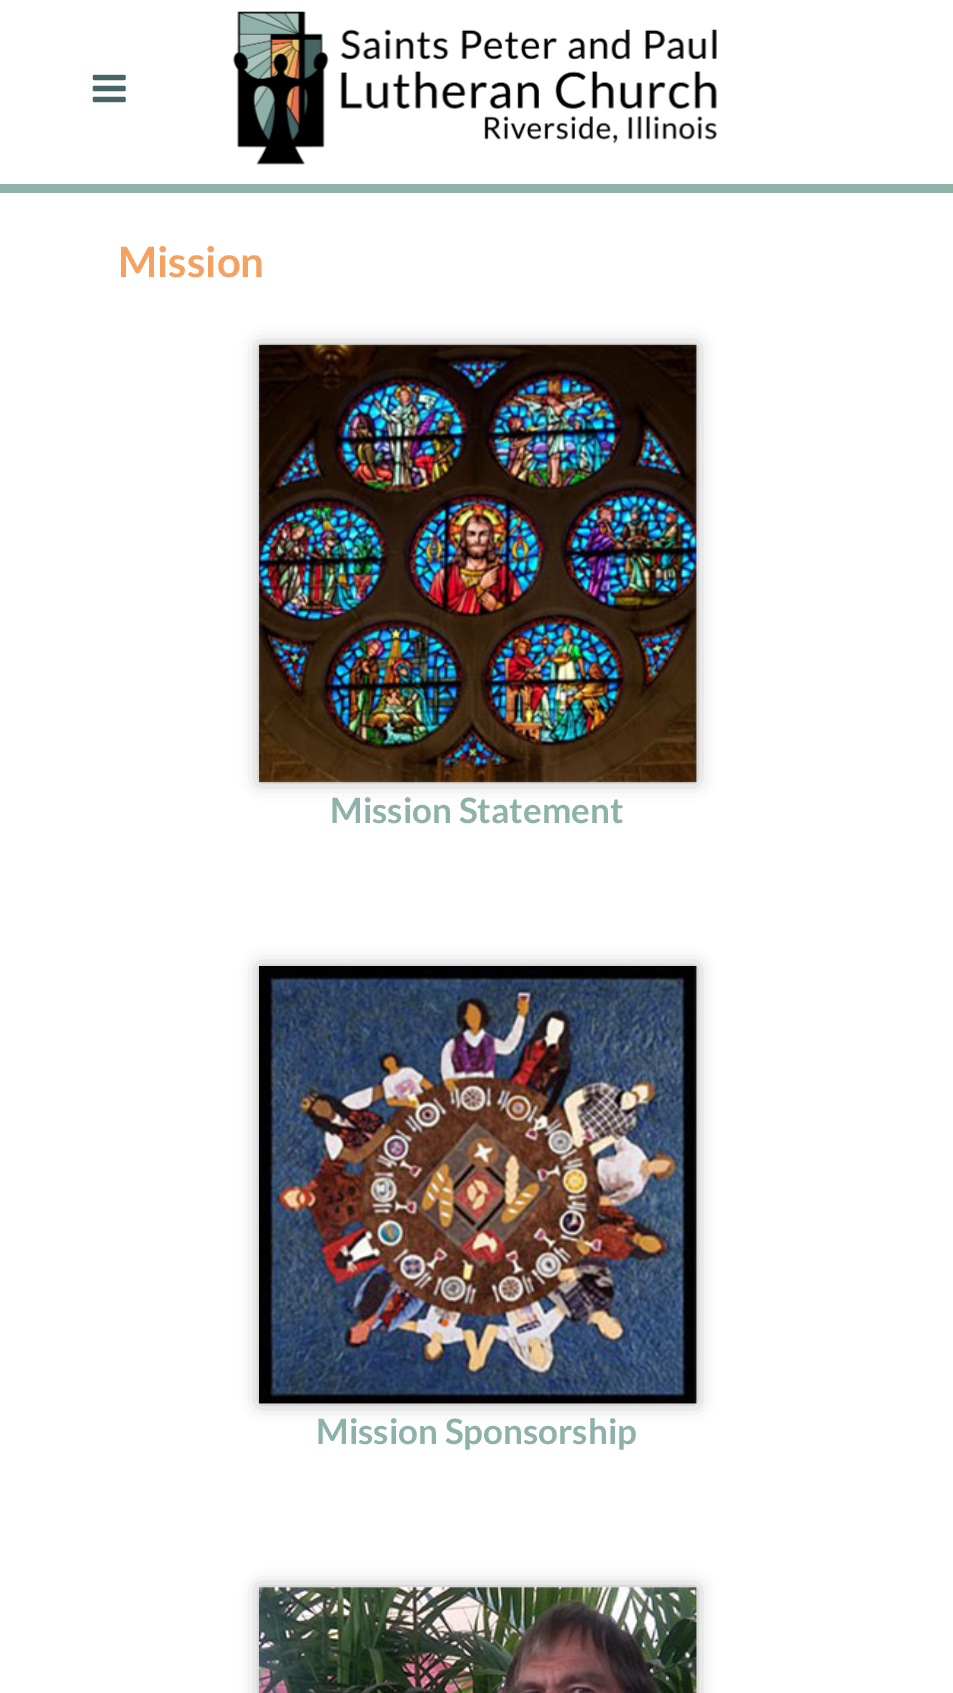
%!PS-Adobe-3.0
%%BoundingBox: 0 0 953 1693
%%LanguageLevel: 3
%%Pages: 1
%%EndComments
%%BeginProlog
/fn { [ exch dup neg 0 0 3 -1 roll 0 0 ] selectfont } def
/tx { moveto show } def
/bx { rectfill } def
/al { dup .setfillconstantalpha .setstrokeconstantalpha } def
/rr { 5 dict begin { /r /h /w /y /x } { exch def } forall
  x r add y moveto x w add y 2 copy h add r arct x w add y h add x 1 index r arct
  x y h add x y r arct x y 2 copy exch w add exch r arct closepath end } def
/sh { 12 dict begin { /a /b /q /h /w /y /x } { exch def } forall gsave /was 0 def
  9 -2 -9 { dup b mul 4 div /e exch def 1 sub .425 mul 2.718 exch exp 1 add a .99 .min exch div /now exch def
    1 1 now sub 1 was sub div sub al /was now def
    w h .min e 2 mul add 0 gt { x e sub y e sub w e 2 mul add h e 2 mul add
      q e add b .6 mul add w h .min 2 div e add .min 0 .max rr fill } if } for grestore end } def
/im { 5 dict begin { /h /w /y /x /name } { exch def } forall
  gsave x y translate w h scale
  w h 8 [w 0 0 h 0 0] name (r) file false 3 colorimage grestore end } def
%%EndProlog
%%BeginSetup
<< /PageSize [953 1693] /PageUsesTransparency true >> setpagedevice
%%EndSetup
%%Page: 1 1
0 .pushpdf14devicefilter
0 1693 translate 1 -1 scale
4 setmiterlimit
1 setgray
0 0 953 1693 bx
0.557 0.698 0.663 setrgbcolor
0 184 953 9 bx
(image0.raw) 92 74 34 29 im
(image1.raw) 232 11 485 154 im
/Lato-Bold 42 fn
0.957 0.635 0.38 setrgbcolor
(Mission) 118 277 tx
0 setgray
259 345 438 437 0 9 0.3 sh
(image2.raw) 259 344 438 439 im
/Lato-Bold 35 fn
0.557 0.698 0.663 setrgbcolor
(Mission Statement) 330 823 tx
0 setgray
259 966 438 438 0 9 0.3 sh
(image3.raw) 259 966 438 438 im
0.557 0.698 0.663 setrgbcolor
(Mission Sponsorship) 316 1444 tx
0 setgray
259 1587 438 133 0 9 0.3 sh
(image4.raw) 259 1587 438 106 im
.poppdf14devicefilter showpage
%%EOF
